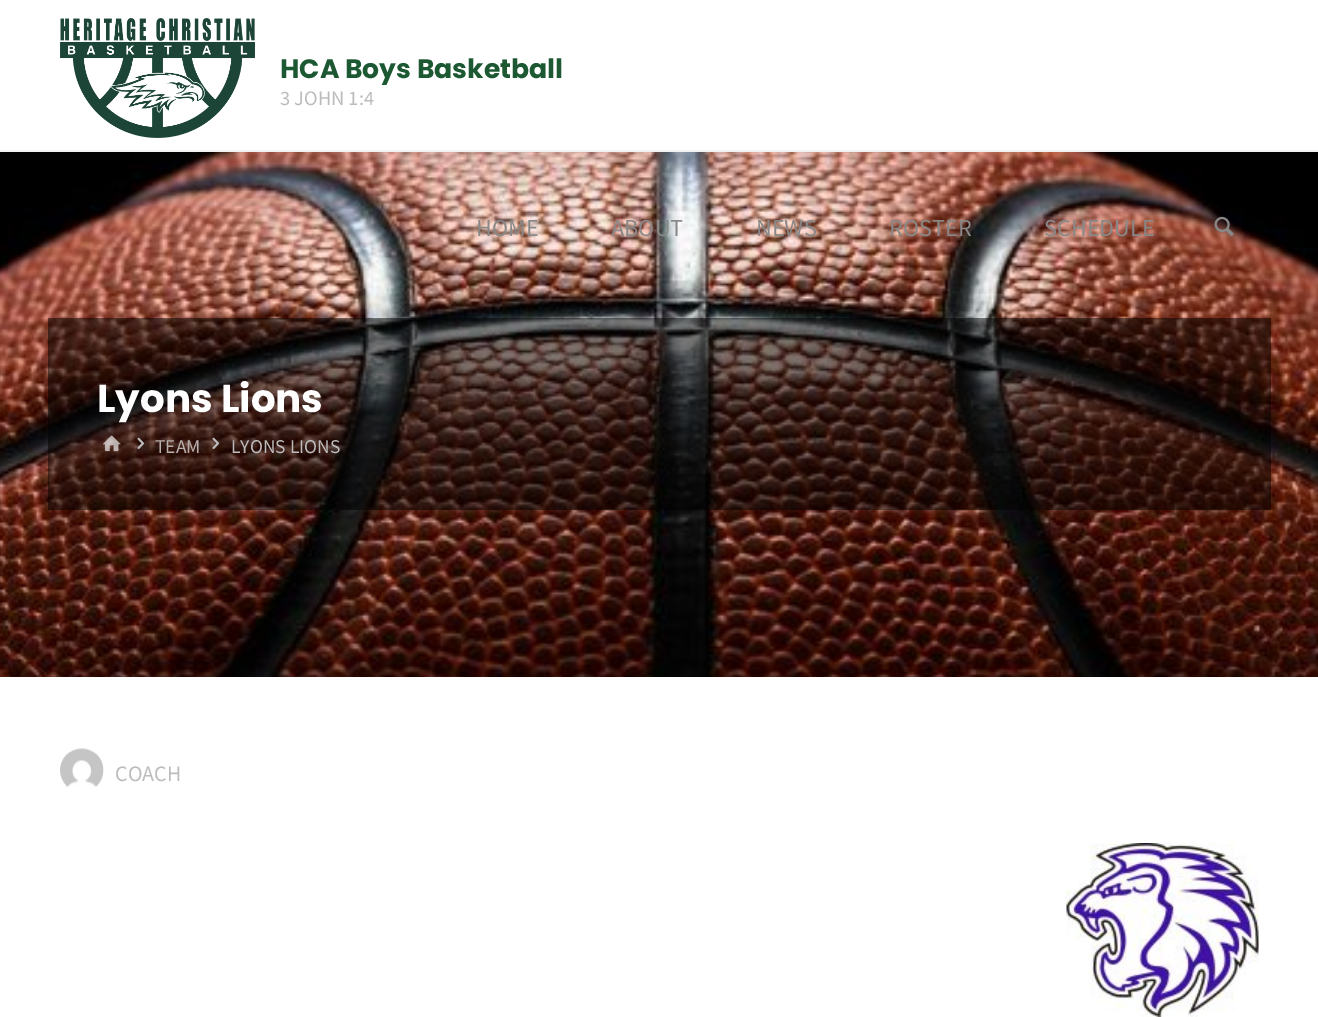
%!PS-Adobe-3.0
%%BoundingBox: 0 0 1318 1017
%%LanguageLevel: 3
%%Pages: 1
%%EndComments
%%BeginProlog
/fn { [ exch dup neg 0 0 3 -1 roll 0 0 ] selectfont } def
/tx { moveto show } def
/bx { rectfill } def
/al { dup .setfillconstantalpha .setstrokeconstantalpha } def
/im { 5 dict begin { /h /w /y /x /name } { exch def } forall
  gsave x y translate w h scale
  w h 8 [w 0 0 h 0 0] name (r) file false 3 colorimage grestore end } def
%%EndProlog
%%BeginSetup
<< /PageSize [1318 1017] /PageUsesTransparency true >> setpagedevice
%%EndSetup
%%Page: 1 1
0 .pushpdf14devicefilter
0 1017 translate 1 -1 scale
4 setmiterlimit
1 setgray
0 0 1318 1017 bx
0.949 setgray
0 150 1318 2 bx
(image0.raw) 60 18 195 120 im
/Poppins-Bold 26.6 fn
0.11 0.345 0.192 setrgbcolor
(HCA Boys Basketball) 280 78 tx
/SourceSansPro-Regular 20.5 fn
0.737 setgray
(3 JOHN 1:4) 280 105 tx
(image2.raw) 0 152 1318 525 im
/SourceSansPro-Regular 24.25 fn
0.533 setgray
(HOME) 476 236 tx
(ABOUT) 611 236 tx
(NEWS) 756 236 tx
(ROSTER) 889 236 tx
(SCHEDULE) 1044 236 tx
(image1.raw) 1214 216 20 20 im
0.5 al
0 setgray
48 318 1223 192 bx
/Poppins-Bold 38.75 fn
1 al
1 setgray
(Lyons Lions) 97 412 tx
(image3.raw) 103 435 18 17 im
(image4.raw) 137 437 7 12 im
/SourceSansPro-Regular 19.5 fn
0.725 0.69 0.682 setrgbcolor
(TEAM) 155 453 tx
(image5.raw) 212 437 7 12 im
0.737 setgray
(LYONS LIONS) 231 453 tx
(image6.raw) 60 748 44 40 im
/SourceSansPro-Regular 22 fn
(COACH) 115 781 tx
(image7.raw) 1066 843 193 174 im
.poppdf14devicefilter showpage
%%EOF
